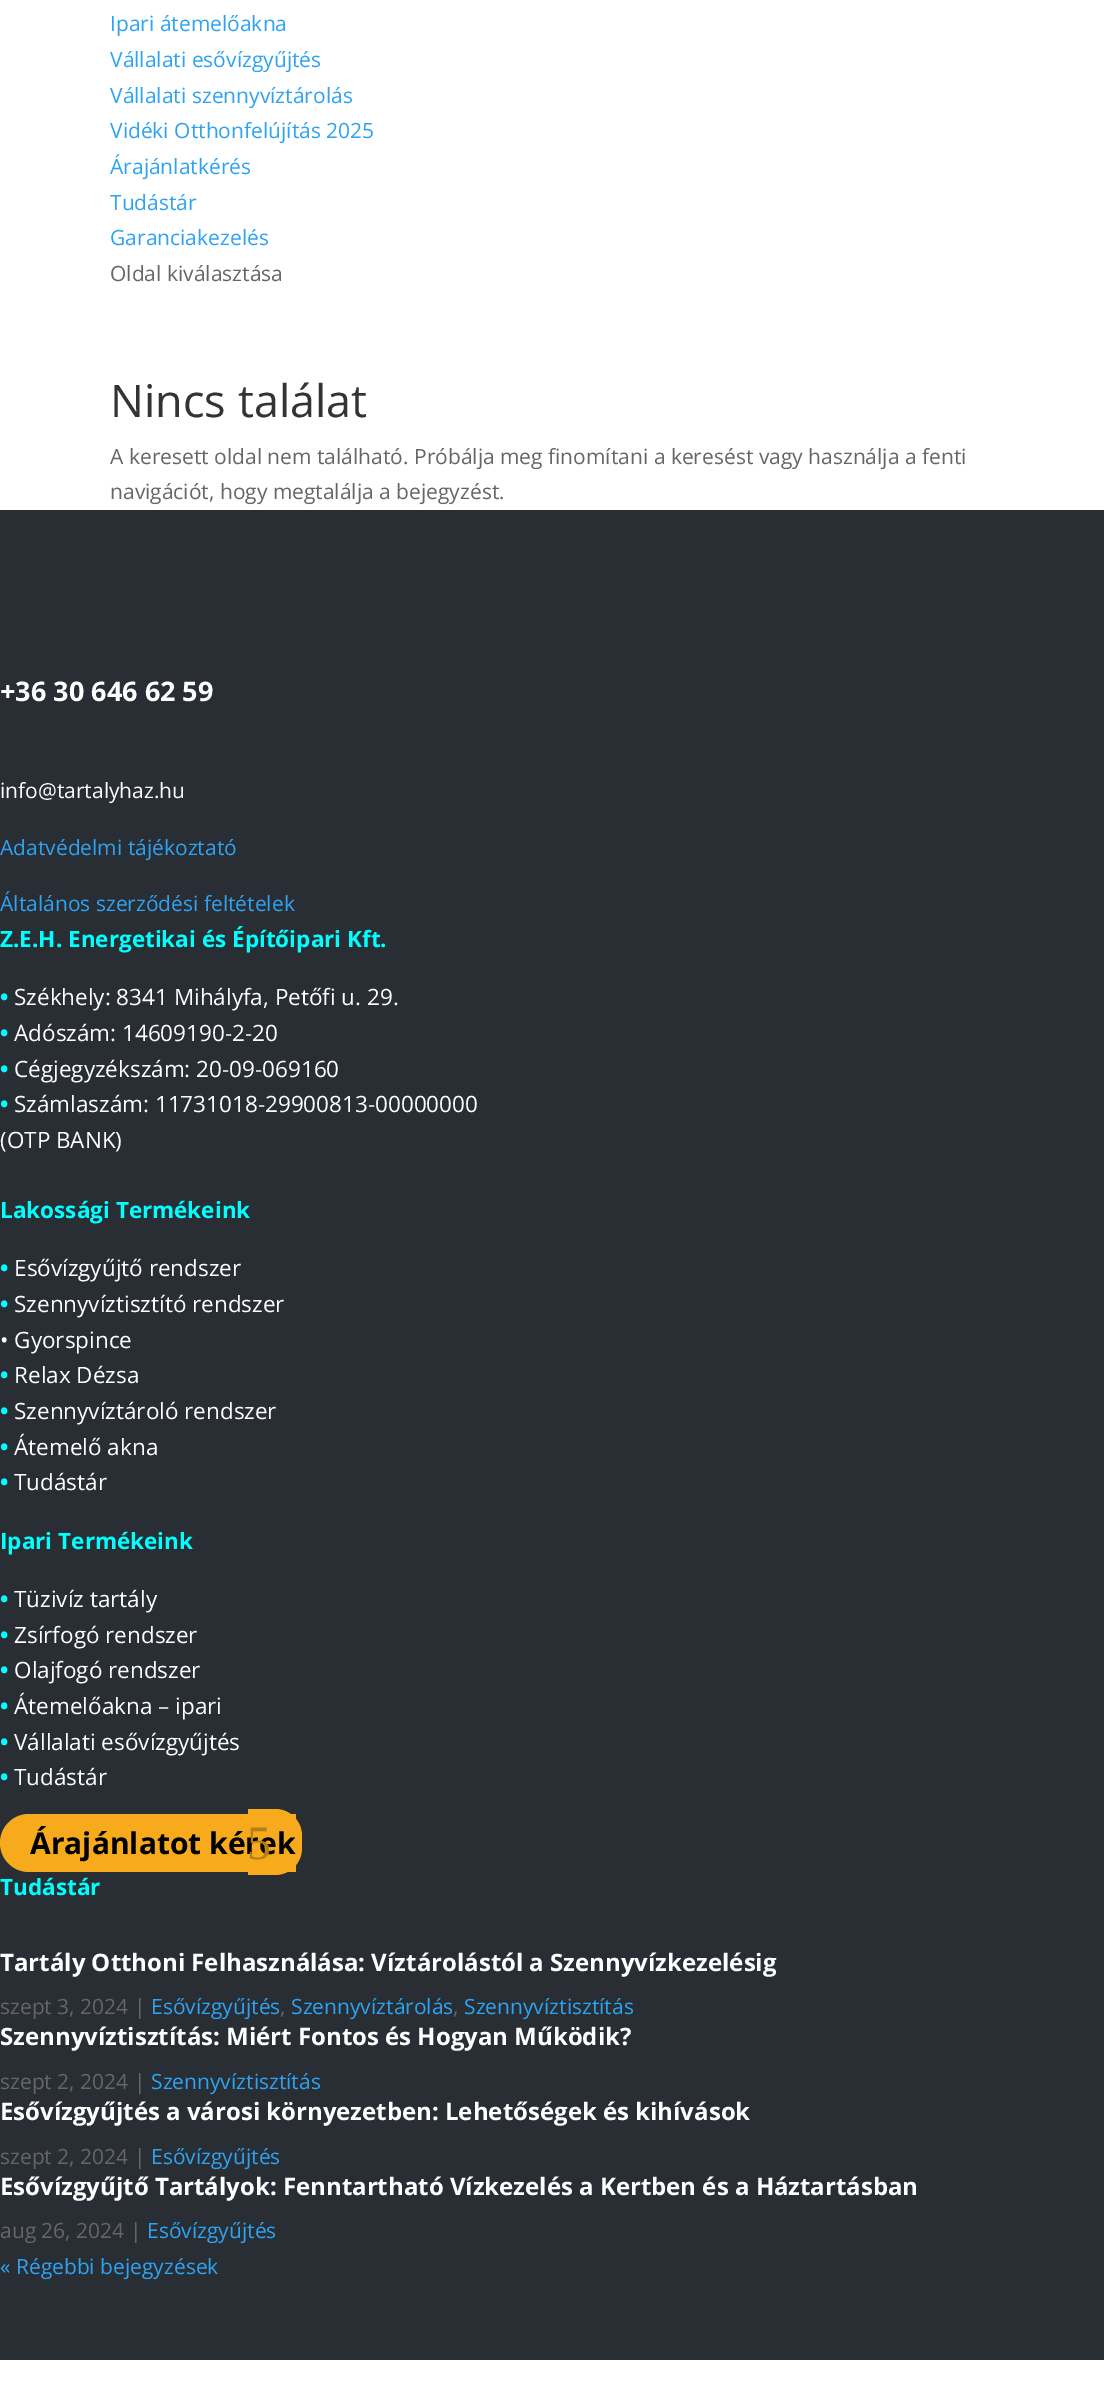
%!PS-Adobe-3.0
%%BoundingBox: 0 0 1104 2395
%%LanguageLevel: 3
%%Pages: 1
%%EndComments
%%BeginProlog
/m { moveto } bind def
/l { lineto } bind def
/c { curveto } bind def
/h { closepath } bind def
/f { fill } bind def
/fn { [ exch dup neg 0 0 3 -1 roll 0 0 ] selectfont } def
/tx { moveto show } def
/bx { rectfill } def
%%EndProlog
%%BeginSetup
<< /PageSize [1104 2395] >> setpagedevice
%%EndSetup
%%Page: 1 1
0 2395 translate 1 -1 scale
4 setmiterlimit
1 setgray
0 0 1104 2395 bx
/OpenSans-Regular 21 fn
0.18 0.639 0.949 setrgbcolor
(Ipari átemelőakna) 110 31 tx
(Vállalati esővízgyűjtés) 110 67 tx
(Vállalati szennyvíztárolás) 110 103 tx
(Vidéki Otthonfelújítás 2025) 110 138 tx
(Árajánlatkérés) 110 174 tx
(Tudástár) 110 210 tx
(Garanciakezelés) 110 245 tx
0.4 setgray
(Oldal kiválasztása) 110 281 tx
/OpenSans-Regular 45 fn
0.2 setgray
(Nincs találat) 110 417 tx
/OpenSans-Regular 21 fn
0.4 setgray
(A keresett oldal nem található. Próbálja meg finomítani a keresést vagy használja a fenti) 110 464 tx
(navigációt, hogy megtalálja a bejegyzést.) 110 499 tx
0.161 0.18 0.204 setrgbcolor
0 510 1104 1850 bx
/OpenSans-Bold 27 fn
1 setgray
(+36 30 646 62 59) 0 701 tx
/OpenSans-Regular 21 fn
(info@tartalyhaz.hu) 0 798 tx
0.18 0.639 0.949 setrgbcolor
(Adatvédelmi tájékoztató) 0 855 tx
(Általános szerződési feltételek) 0 911 tx
/OpenSans-Bold 22.5 fn
0 1 1 setrgbcolor
(Z.E.H. Energetikai és Építőipari Kft.) 0 947 tx
(•) 0 1005 tx
/OpenSans-Regular 22.5 fn
1 setgray
(Székhely: 8341 Mihályfa, Petőfi u. 29.) 14 1005 tx
/OpenSans-Bold 22.5 fn
0 1 1 setrgbcolor
(•) 0 1041 tx
/OpenSans-Regular 22.5 fn
1 setgray
(Adószám: 14609190-2-20) 14 1041 tx
/OpenSans-Bold 22.5 fn
0 1 1 setrgbcolor
(•) 0 1077 tx
/OpenSans-Regular 22.5 fn
1 setgray
(Cégjegyzékszám: 20-09-069160) 14 1077 tx
/OpenSans-Bold 22.5 fn
0 1 1 setrgbcolor
(•) 0 1112 tx
/OpenSans-Regular 22.5 fn
1 setgray
(Számlaszám: 11731018-29900813-00000000) 14 1112 tx
(\(OTP BANK\)) 0 1148 tx
/OpenSans-Bold 22.5 fn
0 1 1 setrgbcolor
(Lakossági Termékeink) 0 1218 tx
(•) 0 1276 tx
/OpenSans-Regular 22.5 fn
1 setgray
(Esővízgyűjtő rendszer) 14 1276 tx
/OpenSans-Bold 22.5 fn
0 1 1 setrgbcolor
(•) 0 1312 tx
/OpenSans-Regular 22.5 fn
1 setgray
(Szennyvíztisztító rendszer) 14 1312 tx
(• Gyorspince) 0 1348 tx
/OpenSans-Bold 22.5 fn
0 1 1 setrgbcolor
(•) 0 1383 tx
/OpenSans-Regular 22.5 fn
1 setgray
(Relax Dézsa) 14 1383 tx
/OpenSans-Bold 22.5 fn
0 1 1 setrgbcolor
(•) 0 1419 tx
/OpenSans-Regular 22.5 fn
1 setgray
(Szennyvíztároló rendszer) 14 1419 tx
/OpenSans-Bold 22.5 fn
0 1 1 setrgbcolor
(•) 0 1455 tx
/OpenSans-Regular 22.5 fn
1 setgray
(Átemelő akna) 14 1455 tx
/OpenSans-Bold 22.5 fn
0 1 1 setrgbcolor
(•) 0 1490 tx
/OpenSans-Regular 22.5 fn
1 setgray
(Tudástár) 14 1490 tx
/OpenSans-Bold 22.5 fn
0 1 1 setrgbcolor
(Ipari Termékeink) 0 1549 tx
(•) 0 1607 tx
/OpenSans-Regular 22.5 fn
1 setgray
(Tüzivíz tartály) 14 1607 tx
/OpenSans-Bold 22.5 fn
0 1 1 setrgbcolor
(•) 0 1643 tx
/OpenSans-Regular 22.5 fn
1 setgray
(Zsírfogó rendszer) 14 1643 tx
/OpenSans-Bold 22.5 fn
0 1 1 setrgbcolor
(•) 0 1678 tx
/OpenSans-Regular 22.5 fn
1 setgray
(Olajfogó rendszer) 14 1678 tx
/OpenSans-Bold 22.5 fn
0 1 1 setrgbcolor
(•) 0 1714 tx
/OpenSans-Regular 22.5 fn
1 setgray
(Átemelőakna – ipari) 14 1714 tx
/OpenSans-Bold 22.5 fn
0 1 1 setrgbcolor
(•) 0 1750 tx
/OpenSans-Regular 22.5 fn
1 setgray
(Vállalati esővízgyűjtés) 14 1750 tx
/OpenSans-Bold 22.5 fn
0 1 1 setrgbcolor
(•) 0 1785 tx
/OpenSans-Regular 22.5 fn
1 setgray
(Tudástár) 14 1785 tx
0.965 0.667 0.11 setrgbcolor
29 1814 m 296 1814 l 296 1872 l 29 1872 l 13 1872 0 1859 0 1843 c 0 1827 13 1814 29 1814 c h f
248 1809 m 275 1809 l 290 1809 302 1821 302 1836 c 302 1848 l 302 1863 290 1875 275 1875 c 248 1875 l h f
/OpenSans-Bold 30 fn
0 setgray
(Árajánlatot kérek) 30 1854 tx
/LiberationSerif-Regular 48 fn
0.714 0.494 0.082 setrgbcolor
(5) 247 1859 tx
/OpenSans-Bold 22.5 fn
0 1 1 setrgbcolor
(Tudástár) 0 1895 tx
/OpenSans-Bold 24 fn
1 setgray
(Tartály Otthoni Felhasználása: Víztárolástól a Szennyvízkezelésig) 0 1971 tx
/OpenSans-Regular 21 fn
0.4 setgray
(szept 3, 2024 |) 0 2014 tx
0.18 0.639 0.949 setrgbcolor
(Esővízgyűjtés) 151 2014 tx
0.4 setgray
(,) 280 2014 tx
0.18 0.639 0.949 setrgbcolor
(Szennyvíztárolás) 291 2014 tx
0.4 setgray
(,) 453 2014 tx
0.18 0.639 0.949 setrgbcolor
(Szennyvíztisztítás) 464 2014 tx
/OpenSans-Bold 24 fn
1 setgray
(Szennyvíztisztítás: Miért Fontos és Hogyan Működik?) 0 2045 tx
/OpenSans-Regular 21 fn
0.4 setgray
(szept 2, 2024 |) 0 2089 tx
0.18 0.639 0.949 setrgbcolor
(Szennyvíztisztítás) 151 2089 tx
/OpenSans-Bold 24 fn
1 setgray
(Esővízgyűjtés a városi környezetben: Lehetőségek és kihívások) 0 2120 tx
/OpenSans-Regular 21 fn
0.4 setgray
(szept 2, 2024 |) 0 2164 tx
0.18 0.639 0.949 setrgbcolor
(Esővízgyűjtés) 151 2164 tx
/OpenSans-Bold 24 fn
1 setgray
(Esővízgyűjtő Tartályok: Fenntartható Vízkezelés a Kertben és a Háztartásban) 0 2195 tx
/OpenSans-Regular 21 fn
0.4 setgray
(aug 26, 2024 |) 0 2238 tx
0.18 0.639 0.949 setrgbcolor
(Esővízgyűjtés) 147 2238 tx
(« Régebbi bejegyzések) 0 2274 tx
showpage
%%EOF
